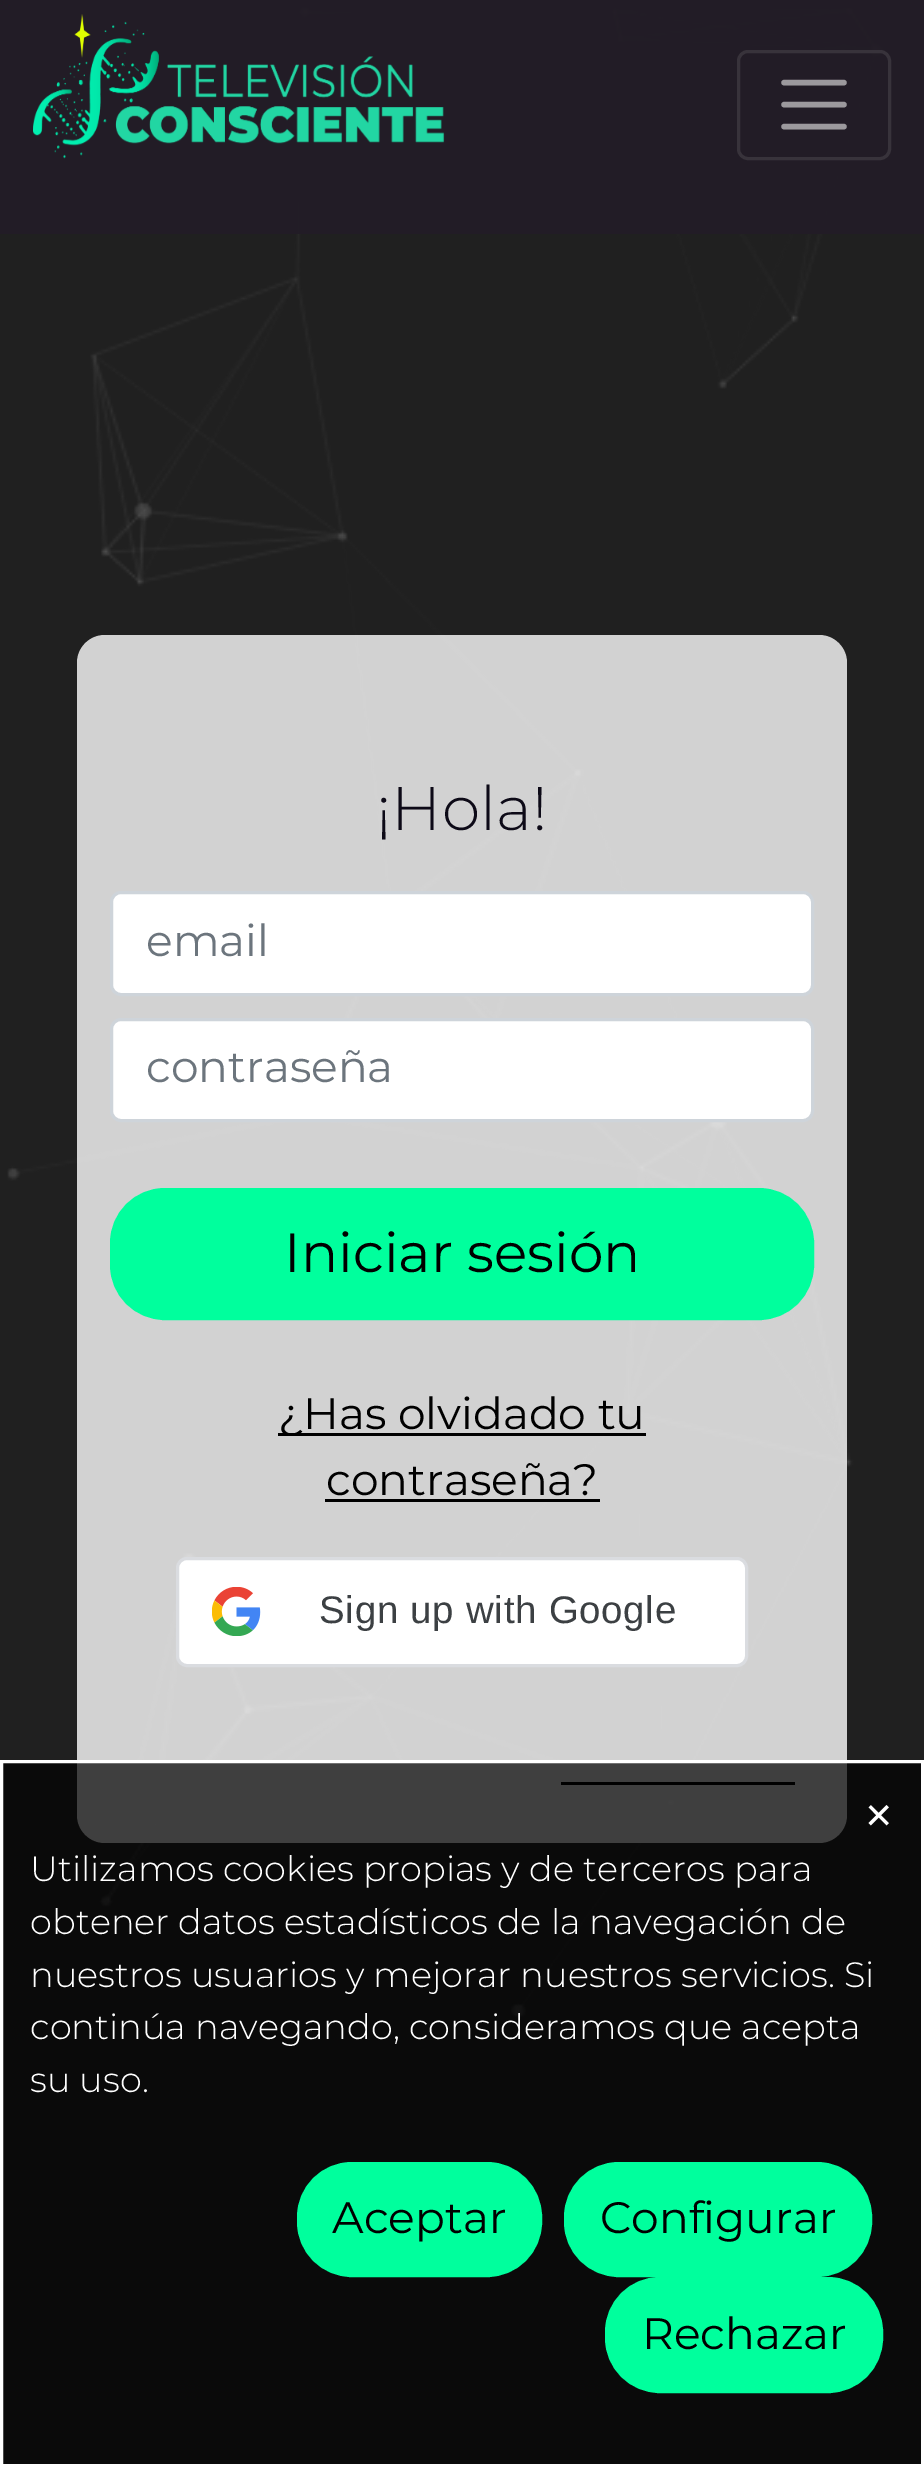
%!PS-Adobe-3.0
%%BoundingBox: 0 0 924 2466
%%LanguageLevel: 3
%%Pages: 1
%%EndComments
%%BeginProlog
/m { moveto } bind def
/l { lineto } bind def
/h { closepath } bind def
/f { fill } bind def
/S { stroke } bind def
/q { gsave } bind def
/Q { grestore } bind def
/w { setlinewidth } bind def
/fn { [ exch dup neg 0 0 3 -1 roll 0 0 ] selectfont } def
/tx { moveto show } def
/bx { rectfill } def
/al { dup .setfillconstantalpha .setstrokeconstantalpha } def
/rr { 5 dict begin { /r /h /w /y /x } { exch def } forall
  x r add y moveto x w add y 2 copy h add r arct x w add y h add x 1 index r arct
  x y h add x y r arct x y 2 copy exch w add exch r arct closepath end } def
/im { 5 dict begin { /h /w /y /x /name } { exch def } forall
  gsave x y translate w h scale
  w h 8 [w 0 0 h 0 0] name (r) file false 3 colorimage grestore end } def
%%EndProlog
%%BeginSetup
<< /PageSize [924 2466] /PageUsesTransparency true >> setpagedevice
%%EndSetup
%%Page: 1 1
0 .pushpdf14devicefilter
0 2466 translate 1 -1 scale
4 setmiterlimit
0.125 setgray
0 0 924 2466 bx
(image1.raw) 7 7 877 2100 im
0.95 al
0.133 0.11 0.149 setrgbcolor
0 0 924 234 bx
1 al
(image0.raw) 33 14 412 145 im
0.22 0.2 0.231 setrgbcolor
3 w
738.5 51.5 151 107 9.5 rr S
0.612 0.6 0.616 setrgbcolor
5.5 w
1 setlinecap
784 82.5 m 844 82.5 l 784 104.5 m 844 104.5 l 784 126.5 m 844 126.5 l S
0.8 al
1 setgray
77 635 770 1208 28 rr f
/Montserrat-Light 61.5 fn
1 al
0.051 0.039 0.09 setrgbcolor
(¡Hola!) 376 830 tx
1 setgray
111.5 892.5 701 102 9.5 rr q f Q
0.808 0.831 0.855 setrgbcolor
3 w
0 setlinecap
S
/Montserrat-Regular 44 fn
0.424 0.459 0.49 setrgbcolor
(email) 146 956 tx
1 setgray
111.5 1019.5 701 101 9.5 rr q f Q
0.808 0.831 0.855 setrgbcolor
S
0.424 0.459 0.49 setrgbcolor
(contraseña) 146 1082 tx
0 1 0.616 setrgbcolor
111.5 1189.5 701 129 53.5 rr q f Q
S
/Montserrat-Regular 55 fn
0 setgray
(Iniciar sesión) 284 1272 tx
278 1433 368 3 bx
/Montserrat-Regular 44 fn
(¿Has olvidado tu) 278 1429 tx
(contraseña?) 326 1495 tx
325 1499 275 3 bx
1 setgray
177.5 1558.5 569 107 9.5 rr q f Q
0.855 0.863 0.878 setrgbcolor
S
(image2.raw) 212 1587 49 49 im
/LiberationSans-Regular 38.5 fn
0.235 0.251 0.263 setrgbcolor
319 1623 m 0.7 0 (Sign up with Google) ashow
0 setgray
561 1782 234 3 bx
0.7 al
1.5 1761.5 m 922.5 1761.5 l 922.5 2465.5 l 1.5 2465.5 l h f
1 al
1 setgray
1.5 1761.5 m 922.5 1761.5 l 922.5 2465.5 l 1.5 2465.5 l h S
/DejaVuSans-Regular 35.2 fn
(✕) 864 1828 tx
/Montserrat-Light 35.2 fn
(Utilizamos cookies propias y de terceros para) 30 1881 tx
(obtener datos estadísticos de la navegación de) 30 1934 tx
(nuestros usuarios y mejorar nuestros servicios. Si) 30 1987 tx
(continúa navegando, consideramos que acepta) 30 2039 tx
(su uso.) 30 2092 tx
0 1 0.616 setrgbcolor
298.5 2163.5 242 112 53.5 rr q f Q
S
/Montserrat-Regular 44 fn
0 setgray
(Aceptar) 332 2233 tx
0 1 0.616 setrgbcolor
565.5 2163.5 305 112 53.5 rr q f Q
S
0 setgray
(Configurar) 600 2233 tx
0 1 0.616 setrgbcolor
606.5 2278.5 275 113 53.5 rr q f Q
S
0 setgray
(Rechazar) 642 2349 tx
.poppdf14devicefilter showpage
%%EOF
